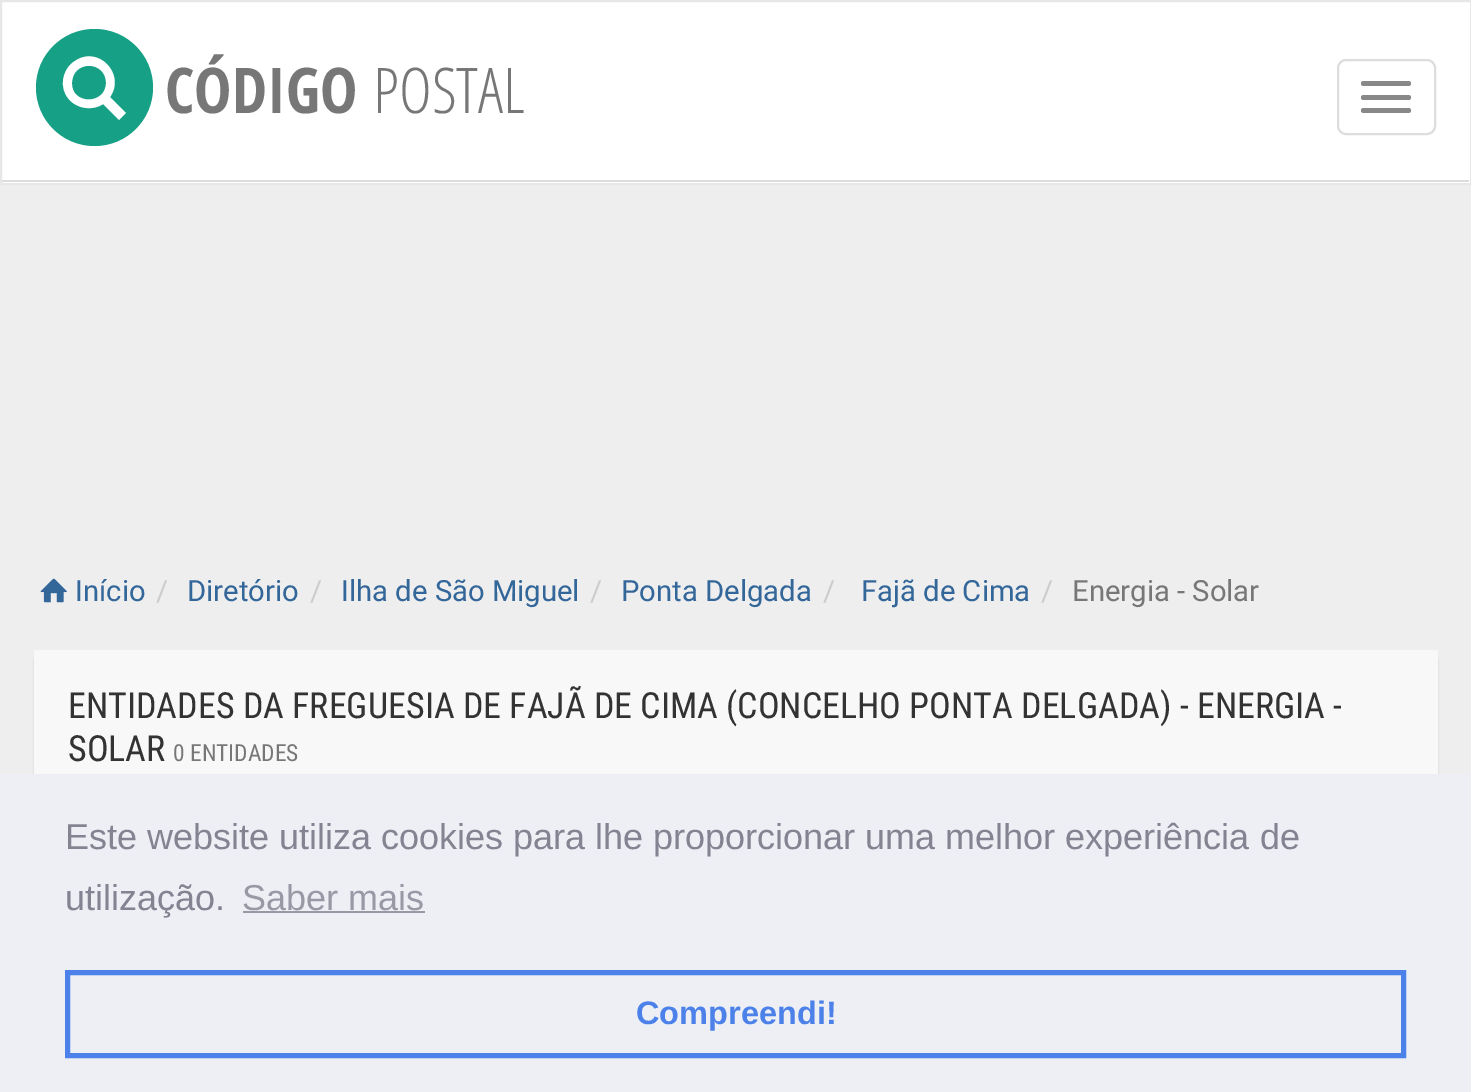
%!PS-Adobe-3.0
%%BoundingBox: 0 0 1471 1092
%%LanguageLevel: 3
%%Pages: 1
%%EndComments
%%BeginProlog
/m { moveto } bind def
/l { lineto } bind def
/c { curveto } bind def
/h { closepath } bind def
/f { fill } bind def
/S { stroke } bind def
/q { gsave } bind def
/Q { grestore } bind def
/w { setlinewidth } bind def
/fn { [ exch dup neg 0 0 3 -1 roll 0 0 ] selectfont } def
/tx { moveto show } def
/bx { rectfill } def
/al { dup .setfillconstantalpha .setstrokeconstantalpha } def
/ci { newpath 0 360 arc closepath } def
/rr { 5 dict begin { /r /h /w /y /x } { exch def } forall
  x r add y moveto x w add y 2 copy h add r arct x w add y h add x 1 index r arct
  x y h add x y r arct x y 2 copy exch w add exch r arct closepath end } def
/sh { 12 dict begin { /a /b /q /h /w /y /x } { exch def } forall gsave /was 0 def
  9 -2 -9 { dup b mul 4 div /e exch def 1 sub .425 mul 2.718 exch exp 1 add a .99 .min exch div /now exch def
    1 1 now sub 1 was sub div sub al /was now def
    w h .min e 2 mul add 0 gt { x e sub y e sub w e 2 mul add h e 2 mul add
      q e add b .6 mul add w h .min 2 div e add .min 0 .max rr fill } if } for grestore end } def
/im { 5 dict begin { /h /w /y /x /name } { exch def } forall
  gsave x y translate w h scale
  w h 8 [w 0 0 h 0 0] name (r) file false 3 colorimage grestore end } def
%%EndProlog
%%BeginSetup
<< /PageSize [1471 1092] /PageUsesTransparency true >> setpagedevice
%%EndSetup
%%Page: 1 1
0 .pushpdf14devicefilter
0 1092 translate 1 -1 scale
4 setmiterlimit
0.933 setgray
0 0 1471 1092 bx
1 setgray
1 1 m 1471 1 l 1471 184 l 1 184 l h q f Q
0.906 setgray
2 w
S
0.867 setgray
2 180 1467 2 bx
0.086 0.627 0.522 setrgbcolor
94.5 87.5 58.5 ci f
1 setgray
110 97 m 126 113 l 119 120 l 103 104 l 91 112 73 108 66 95 c 62 88 62 80 65 73 c 67 68 70 64 75 61 c 98 45 126 74 110 97 c h 106 83 m 106 60 72 60 72 83 c 71 105 106 105 106 83 c h f
/OpenSansCondensed-Bold 63 fn
0.467 setgray
(CÓDIGO) 165 113 tx
/OpenSansCondensed-Light 63 fn
(POSTAL) 373 113 tx
0.867 setgray
1338 60 97 74 8 rr S
0.533 setgray
1361 81 50 5 2.5 rr f
1361 95 50 5 2.5 rr f
1361 108 50 5 2.5 rr f
(image0.raw) 40 578 27 25 im
/Roboto-Regular 29.25 fn
0.2 0.4 0.6 setrgbcolor
(Início) 75 601 tx
0.8 setgray
(/) 156 601 tx
0.2 0.4 0.6 setrgbcolor
(Diretório) 187 601 tx
0.8 setgray
(/) 310 601 tx
0.2 0.4 0.6 setrgbcolor
(Ilha de São Miguel) 341 601 tx
0.8 setgray
(/) 590 601 tx
0.2 0.4 0.6 setrgbcolor
(Ponta Delgada) 621 601 tx
0.8 setgray
(/) 823 601 tx
0.2 0.4 0.6 setrgbcolor
(Fajã de Cima) 861 601 tx
0.8 setgray
(/) 1041 601 tx
0.467 setgray
(Energia - Solar) 1072 601 tx
0.706 setgray
34 653 1404 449 7 1 0.5 sh
0.973 setgray
34 650 1404 124 bx
/RobotoCondensed-Regular 36 fn
0.2 setgray
(ENTIDADES DA FREGUESIA DE FAJÃ DE CIMA \(CONCELHO PONTA DELGADA\) - ENERGIA -) 68 718 tx
(SOLAR) 68 761 tx
/RobotoCondensed-Regular 23.5 fn
0.467 setgray
(0 ENTIDADES) 173 761 tx
0.929 0.937 0.961 setrgbcolor
0 774 1471 318 bx
/LiberationSans-Regular 36 fn
0.514 0.514 0.569 setrgbcolor
(Este website utiliza cookies para lhe proporcionar uma melhor experiência de) 65 849 tx
(utilização.) 65 910 tx
0.596 0.6 0.647 setrgbcolor
(Saber mais) 242 910 tx
243 911 182 2 bx
0.294 0.506 0.91 setrgbcolor
5 w
67.5 972.5 1336 83 rectstroke
/LiberationSans-Bold 32.5 fn
(Compreendi!) 636 1024 tx
.poppdf14devicefilter showpage
%%EOF
